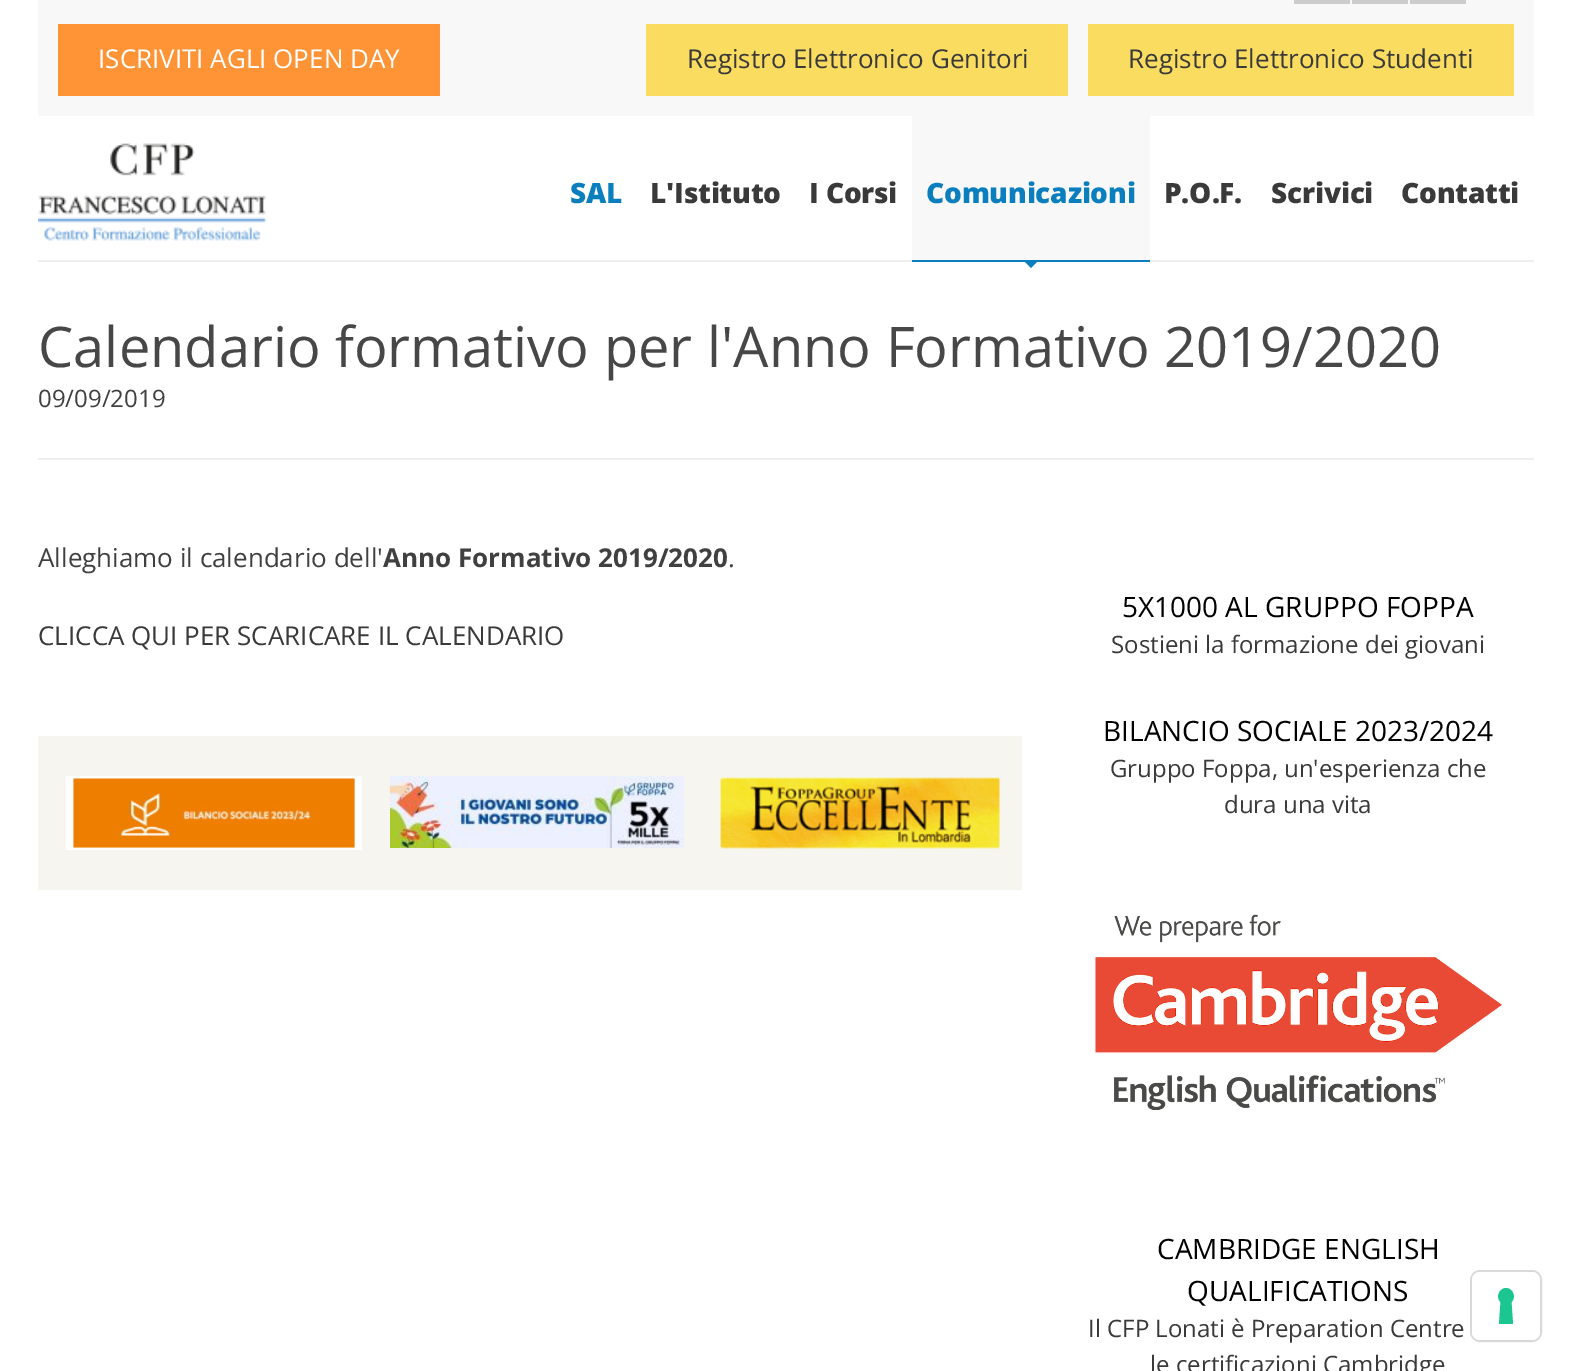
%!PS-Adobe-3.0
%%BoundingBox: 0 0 1571 1371
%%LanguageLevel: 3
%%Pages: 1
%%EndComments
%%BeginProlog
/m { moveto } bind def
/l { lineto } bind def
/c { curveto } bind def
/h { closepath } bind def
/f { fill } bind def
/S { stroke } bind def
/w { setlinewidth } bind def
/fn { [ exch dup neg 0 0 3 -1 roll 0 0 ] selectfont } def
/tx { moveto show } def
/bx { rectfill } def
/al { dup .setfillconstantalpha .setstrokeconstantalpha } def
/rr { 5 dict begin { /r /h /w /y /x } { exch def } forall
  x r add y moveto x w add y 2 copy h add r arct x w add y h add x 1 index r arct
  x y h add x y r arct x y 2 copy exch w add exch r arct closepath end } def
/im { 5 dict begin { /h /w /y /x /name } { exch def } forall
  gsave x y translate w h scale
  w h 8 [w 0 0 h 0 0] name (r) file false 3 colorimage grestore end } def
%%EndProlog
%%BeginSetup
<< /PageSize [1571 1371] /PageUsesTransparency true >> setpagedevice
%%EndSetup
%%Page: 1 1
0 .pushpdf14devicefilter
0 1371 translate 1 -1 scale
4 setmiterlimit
1 setgray
0 0 1571 1371 bx
0.973 setgray
38 0 1496 116 bx
0.8 setgray
1294 0 56 4 bx
1352 0 56 4 bx
1410 0 56 4 bx
1 0.58 0.216 setrgbcolor
58 24 382 72 bx
/OpenSans-Regular 26 fn
1 setgray
(ISCRIVITI AGLI OPEN DAY) 98 68 tx
0.98 0.867 0.376 setrgbcolor
646 24 422 72 bx
0.227 setgray
(Registro Elettronico Genitori) 687 68 tx
0.98 0.867 0.376 setrgbcolor
1088 24 426 72 bx
0.227 setgray
(Registro Elettronico Studenti) 1128 68 tx
0.937 setgray
38 260 1496 2 bx
(image0.raw) 38 143 229 98 im
/OpenSans-ExtraBold 28 fn
0.043 0.498 0.741 setrgbcolor
570 203 m -0.2 0 (SAL) ashow
0.227 setgray
650 203 m -0.2 0 (L'Istituto) ashow
809 203 m -0.2 0 (I Corsi) ashow
0.043 0.498 0.741 setrgbcolor
1031 254 m 1038 261 l 1031 268 l 1024 261 l h f
0.973 setgray
912 116 238 144 bx
0.043 0.498 0.741 setrgbcolor
912 260 238 2 bx
926 203 m -0.2 0 (Comunicazioni) ashow
0.227 setgray
1164 203 m -0.2 0 (P.O.F.) ashow
1271 203 m -0.2 0 (Scrivici) ashow
1401 203 m -0.2 0 (Contatti) ashow
0.937 setgray
38 458 1496 2 bx
/OpenSans-Regular 56 fn
0.278 setgray
(Calendario formativo per l'Anno Formativo 2019/2020) 38 367 tx
/OpenSans-Regular 24 fn
0.251 setgray
(09/09/2019) 38 407 tx
/OpenSans-Regular 26 fn
(Alleghiamo il calendario dell') 38 567 tx
/OpenSans-Bold 26 fn
(Anno Formativo 2019/2020) 383 567 tx
/OpenSans-Regular 26 fn
(.) 728 567 tx
0.227 setgray
(CLICCA QUI PER SCARICARE IL CALENDARIO) 38 645 tx
0.965 0.961 0.937 setrgbcolor
38 736 984 154 bx
(image1.raw) 66 776 296 74 im
(image2.raw) 390 776 294 72 im
(image3.raw) 720 777 280 72 im
/OpenSans-Regular 28 fn
0 setgray
(5X1000 AL GRUPPO FOPPA) 1122 617 tx
/OpenSans-Regular 24 fn
0.227 setgray
(Sostieni la formazione dei giovani) 1111 653 tx
/OpenSans-Regular 28 fn
0 setgray
(BILANCIO SOCIALE 2023/2024) 1103 741 tx
/OpenSans-Regular 24 fn
0.227 setgray
(Gruppo Foppa, un'esperienza che) 1110 777 tx
(dura una vita) 1224 813 tx
(image4.raw) 1095 914 407 196 im
/OpenSans-Regular 28 fn
0 setgray
(CAMBRIDGE ENGLISH) 1157 1259 tx
(QUALIFICATIONS) 1187 1301 tx
/OpenSans-Regular 24 fn
0.227 setgray
(Il CFP Lonati è Preparation Centre) 1088 1337 tx
(le certificazioni Cambridge) 1150 1373 tx
0.15 al
0 setgray
2 w
1471 1271 70 70 9 rr S
1 al
1 setgray
1472 1272 68 68 8 rr f
0.11 0.776 0.569 setrgbcolor
1506 1288 m 1513 1288 1516.5 1297.5 1511.5 1302 c 1513 1324 l 1499 1324 l 1500.5 1302 l 1495.5 1297.5 1499 1288 1506 1288 c h eofill
.poppdf14devicefilter showpage
%%EOF
